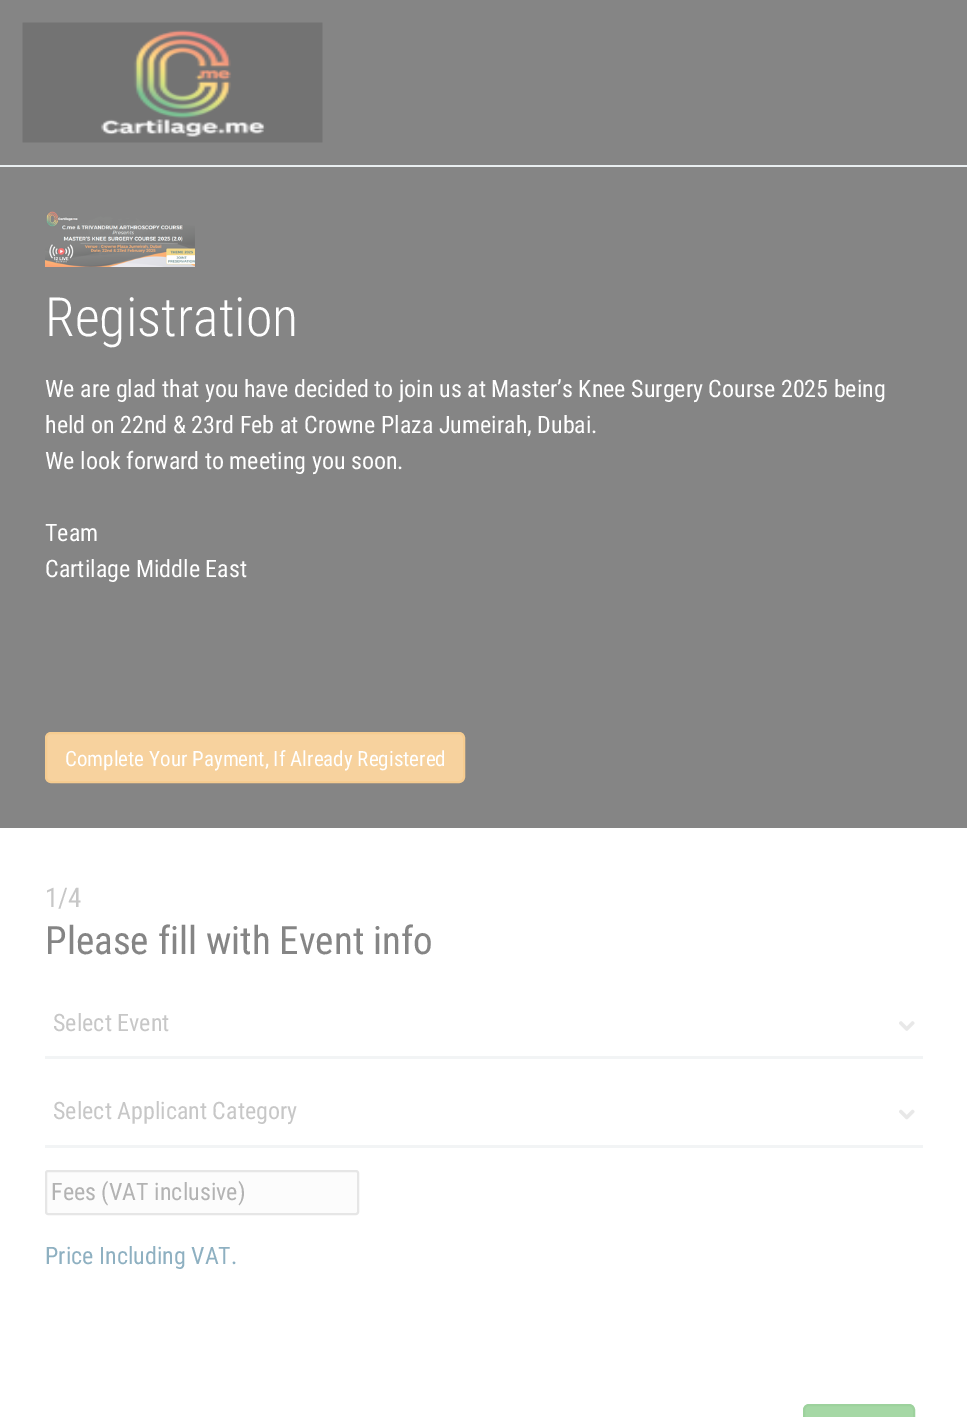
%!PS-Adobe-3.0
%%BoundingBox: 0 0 967 1417
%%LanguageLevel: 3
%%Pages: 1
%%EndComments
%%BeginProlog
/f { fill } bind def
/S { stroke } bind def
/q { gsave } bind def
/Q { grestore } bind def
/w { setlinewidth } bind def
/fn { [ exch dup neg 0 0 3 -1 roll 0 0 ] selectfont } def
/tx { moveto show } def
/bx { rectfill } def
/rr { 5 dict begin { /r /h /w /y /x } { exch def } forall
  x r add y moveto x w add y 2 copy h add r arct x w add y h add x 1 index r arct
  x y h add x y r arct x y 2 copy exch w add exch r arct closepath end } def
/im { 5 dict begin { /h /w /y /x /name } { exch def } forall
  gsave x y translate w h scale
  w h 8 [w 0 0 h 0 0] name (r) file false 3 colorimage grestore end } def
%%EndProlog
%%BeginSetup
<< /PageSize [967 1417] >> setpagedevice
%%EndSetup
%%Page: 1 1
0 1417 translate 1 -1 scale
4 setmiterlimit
1 setgray
0 0 967 1417 bx
0.522 setgray
0 0 967 165 bx
0.918 0.937 0.945 setrgbcolor
0 165 967 2 bx
(image0.raw) 22 22 301 121 im
0.522 setgray
0 167 967 661 bx
(image1.raw) 45 211 150 56 im
/RobotoCondensed-Light 54 fn
1 setgray
(Registration) 45 336 tx
/RobotoCondensed-Regular 24 fn
(We are glad that you have decided to join us at Master’s Knee Surgery Course 2025 being) 45 397 tx
(held on 22nd & 23rd Feb at Crowne Plaza Jumeirah, Dubai.) 45 433 tx
(We look forward to meeting you soon.) 45 469 tx
(Team) 45 541 tx
(Cartilage Middle East) 45 577 tx
0.969 0.824 0.62 setrgbcolor
46 733 418 49 5 rr q f Q
0.965 0.8 0.565 setrgbcolor
2 w
S
/RobotoCondensed-Regular 21 fn
1 setgray
(Complete Your Payment, If Already Registered) 65 766 tx
/RobotoCondensed-Regular 27 fn
0.78 setgray
(1/4) 45 907 tx
/RobotoCondensed-Regular 39 fn
0.522 setgray
(Please fill with Event info) 45 954 tx
(image2.raw) 899 1021 16 10 im
0.949 0.957 0.961 setrgbcolor
45 1056 878 3 bx
/RobotoCondensed-Regular 24 fn
0.78 setgray
(Select Event) 53 1031 tx
(image3.raw) 899 1109 16 11 im
0.949 0.957 0.961 setrgbcolor
45 1145 878 3 bx
0.78 setgray
(Select Applicant Category) 53 1119 tx
0.988 setgray
46 1171 312 43 2 rr q f Q
0.902 setgray
S
0.702 setgray
(Fees \(VAT inclusive\)) 51 1200 tx
0.557 0.69 0.757 setrgbcolor
(Price Including VAT.) 45 1264 tx
0.647 0.847 0.647 setrgbcolor
804 1405 110 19 5 rr q f Q
0.616 0.824 0.616 setrgbcolor
S
showpage
%%EOF
